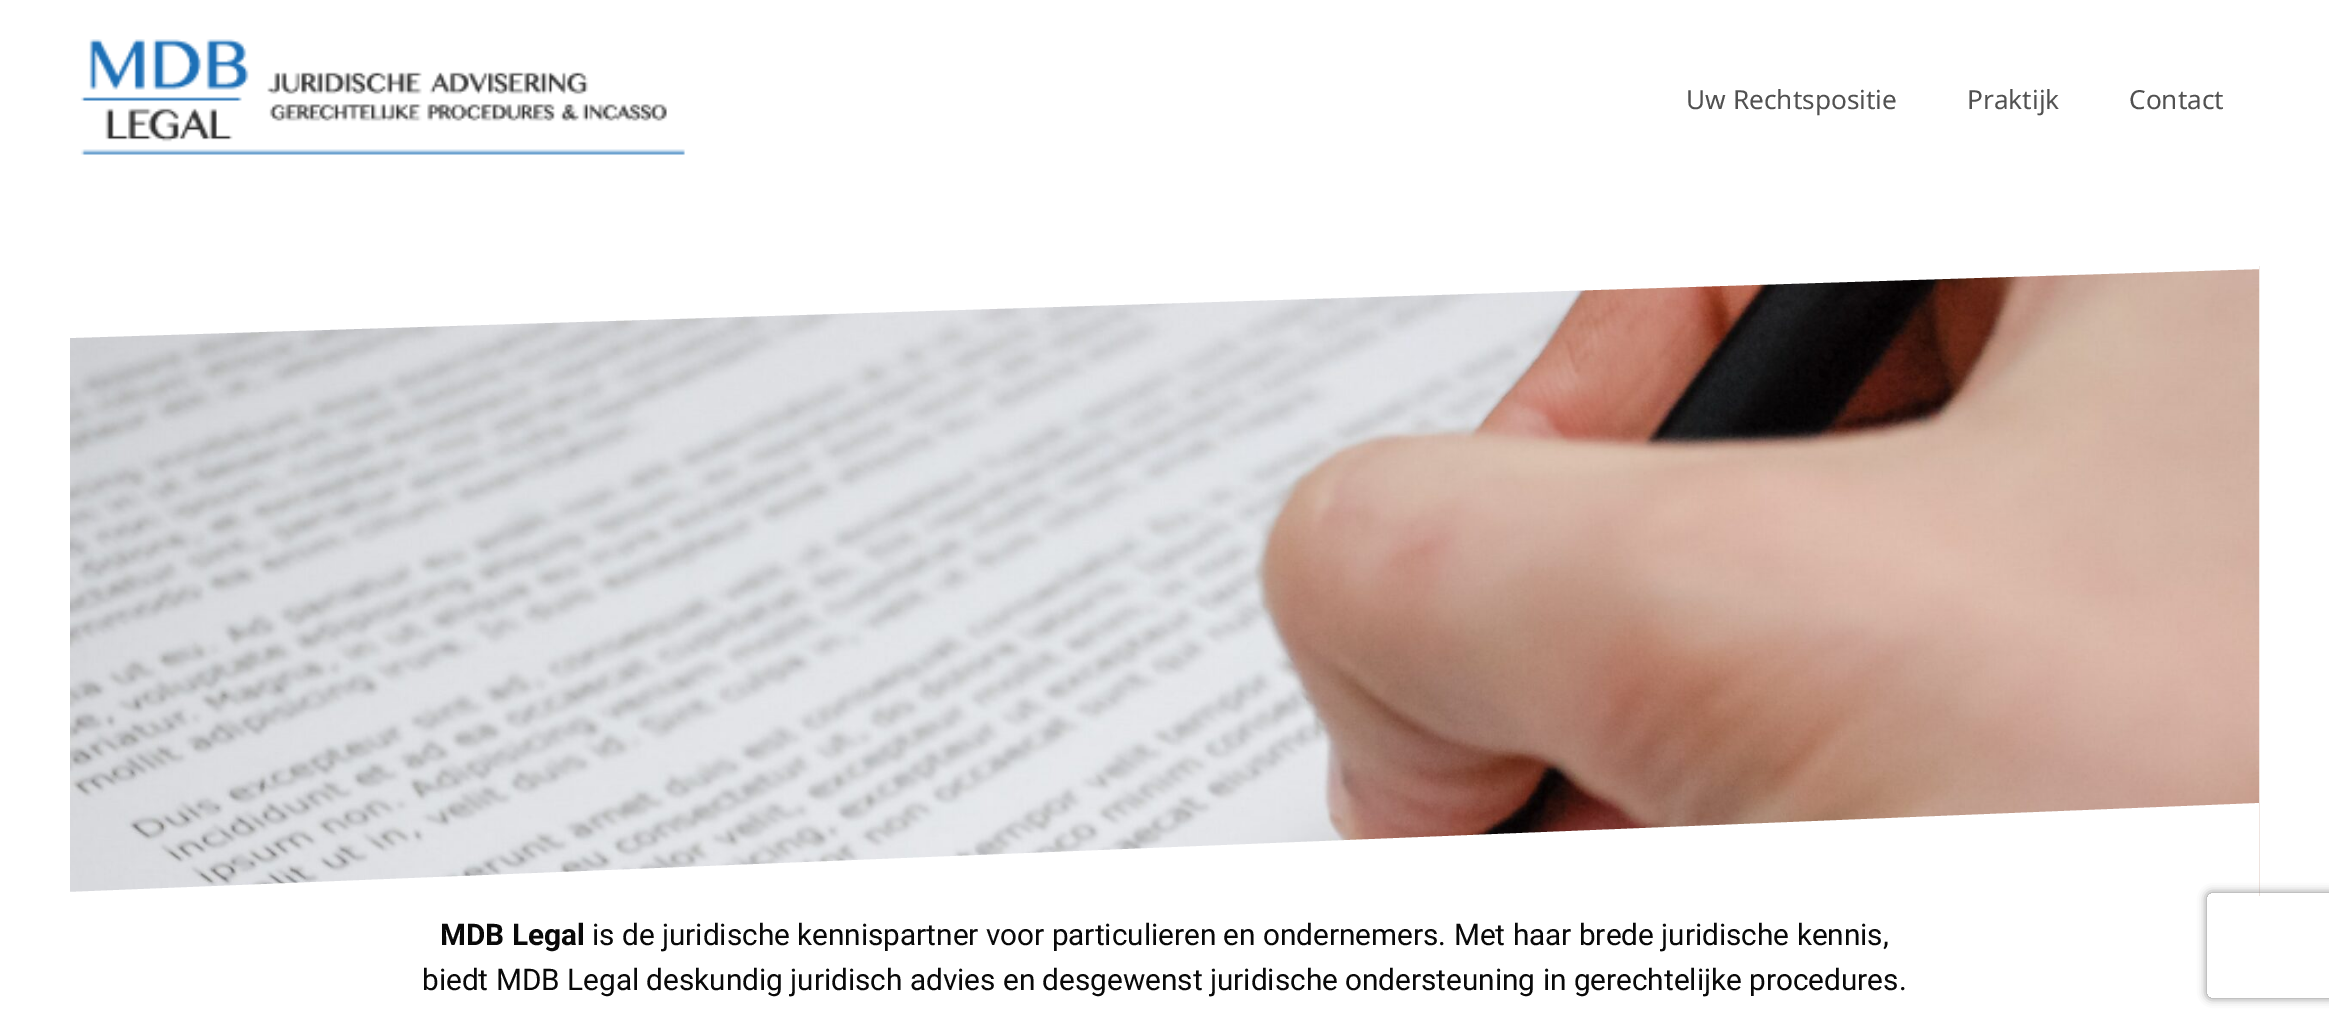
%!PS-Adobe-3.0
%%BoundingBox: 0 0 2329 1022
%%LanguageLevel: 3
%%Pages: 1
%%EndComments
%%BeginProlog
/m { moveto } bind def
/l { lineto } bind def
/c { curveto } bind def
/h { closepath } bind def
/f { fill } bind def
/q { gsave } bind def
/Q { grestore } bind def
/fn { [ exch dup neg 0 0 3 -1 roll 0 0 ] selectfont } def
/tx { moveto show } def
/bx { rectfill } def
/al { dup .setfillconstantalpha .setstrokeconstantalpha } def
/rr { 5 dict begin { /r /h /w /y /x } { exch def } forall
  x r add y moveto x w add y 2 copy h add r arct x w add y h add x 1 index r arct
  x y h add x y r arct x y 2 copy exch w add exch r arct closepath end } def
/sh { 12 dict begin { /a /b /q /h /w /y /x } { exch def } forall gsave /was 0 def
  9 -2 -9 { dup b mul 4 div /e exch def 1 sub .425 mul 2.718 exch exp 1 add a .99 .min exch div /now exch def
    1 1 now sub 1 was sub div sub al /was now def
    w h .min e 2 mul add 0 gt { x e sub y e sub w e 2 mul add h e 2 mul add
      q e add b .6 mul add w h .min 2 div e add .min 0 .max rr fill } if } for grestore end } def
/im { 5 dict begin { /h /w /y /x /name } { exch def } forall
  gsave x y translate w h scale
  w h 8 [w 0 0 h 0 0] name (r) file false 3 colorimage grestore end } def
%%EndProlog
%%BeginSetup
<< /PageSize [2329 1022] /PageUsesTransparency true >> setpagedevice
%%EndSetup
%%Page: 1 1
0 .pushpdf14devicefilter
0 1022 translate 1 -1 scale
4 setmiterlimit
1 setgray
0 0 2329 1022 bx
(image0.raw) 80 39 605 116 im
/NotoSans-Regular 26.25 fn
0.318 setgray
(Uw Rechtspositie) 1686 109 tx
(Praktijk) 1967 109 tx
(Contact) 2129 109 tx
(image1.raw) 70 266 2190 630 im
q
70 264 2189 74 rectclip
1 setgray
2260 269 m 2260 264 l 68 264 l 68 338 l h f
Q
q
70 803 2189 95 rectclip
1 setgray
70 892 m 70 898 l 2261 898 l 2261 803 l h f
Q
/Roboto-Bold 29.75 fn
0.035 setgray
(MDB Legal) 440 945 tx
/Roboto-Regular 29.75 fn
(is de juridische kennispartner voor particulieren en ondernemers. Met haar brede juridische kennis,) 592 945 tx
(biedt MDB Legal deskundig juridisch advies en desgewenst juridische ondersteuning in gerechtelijke procedures.) 422 990 tx
q
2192 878 m 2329 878 l 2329 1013 l 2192 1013 l h 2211 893 m 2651 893 l 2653 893 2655 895 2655 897 c 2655 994 l 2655 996 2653 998 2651 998 c 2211 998 l 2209 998 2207 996 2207 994 c 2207 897 l 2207 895 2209 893 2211 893 c h eoclip newpath
0.502 setgray
2207 893 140 105 4 4.5 1 sh
Q
.poppdf14devicefilter showpage
%%EOF
